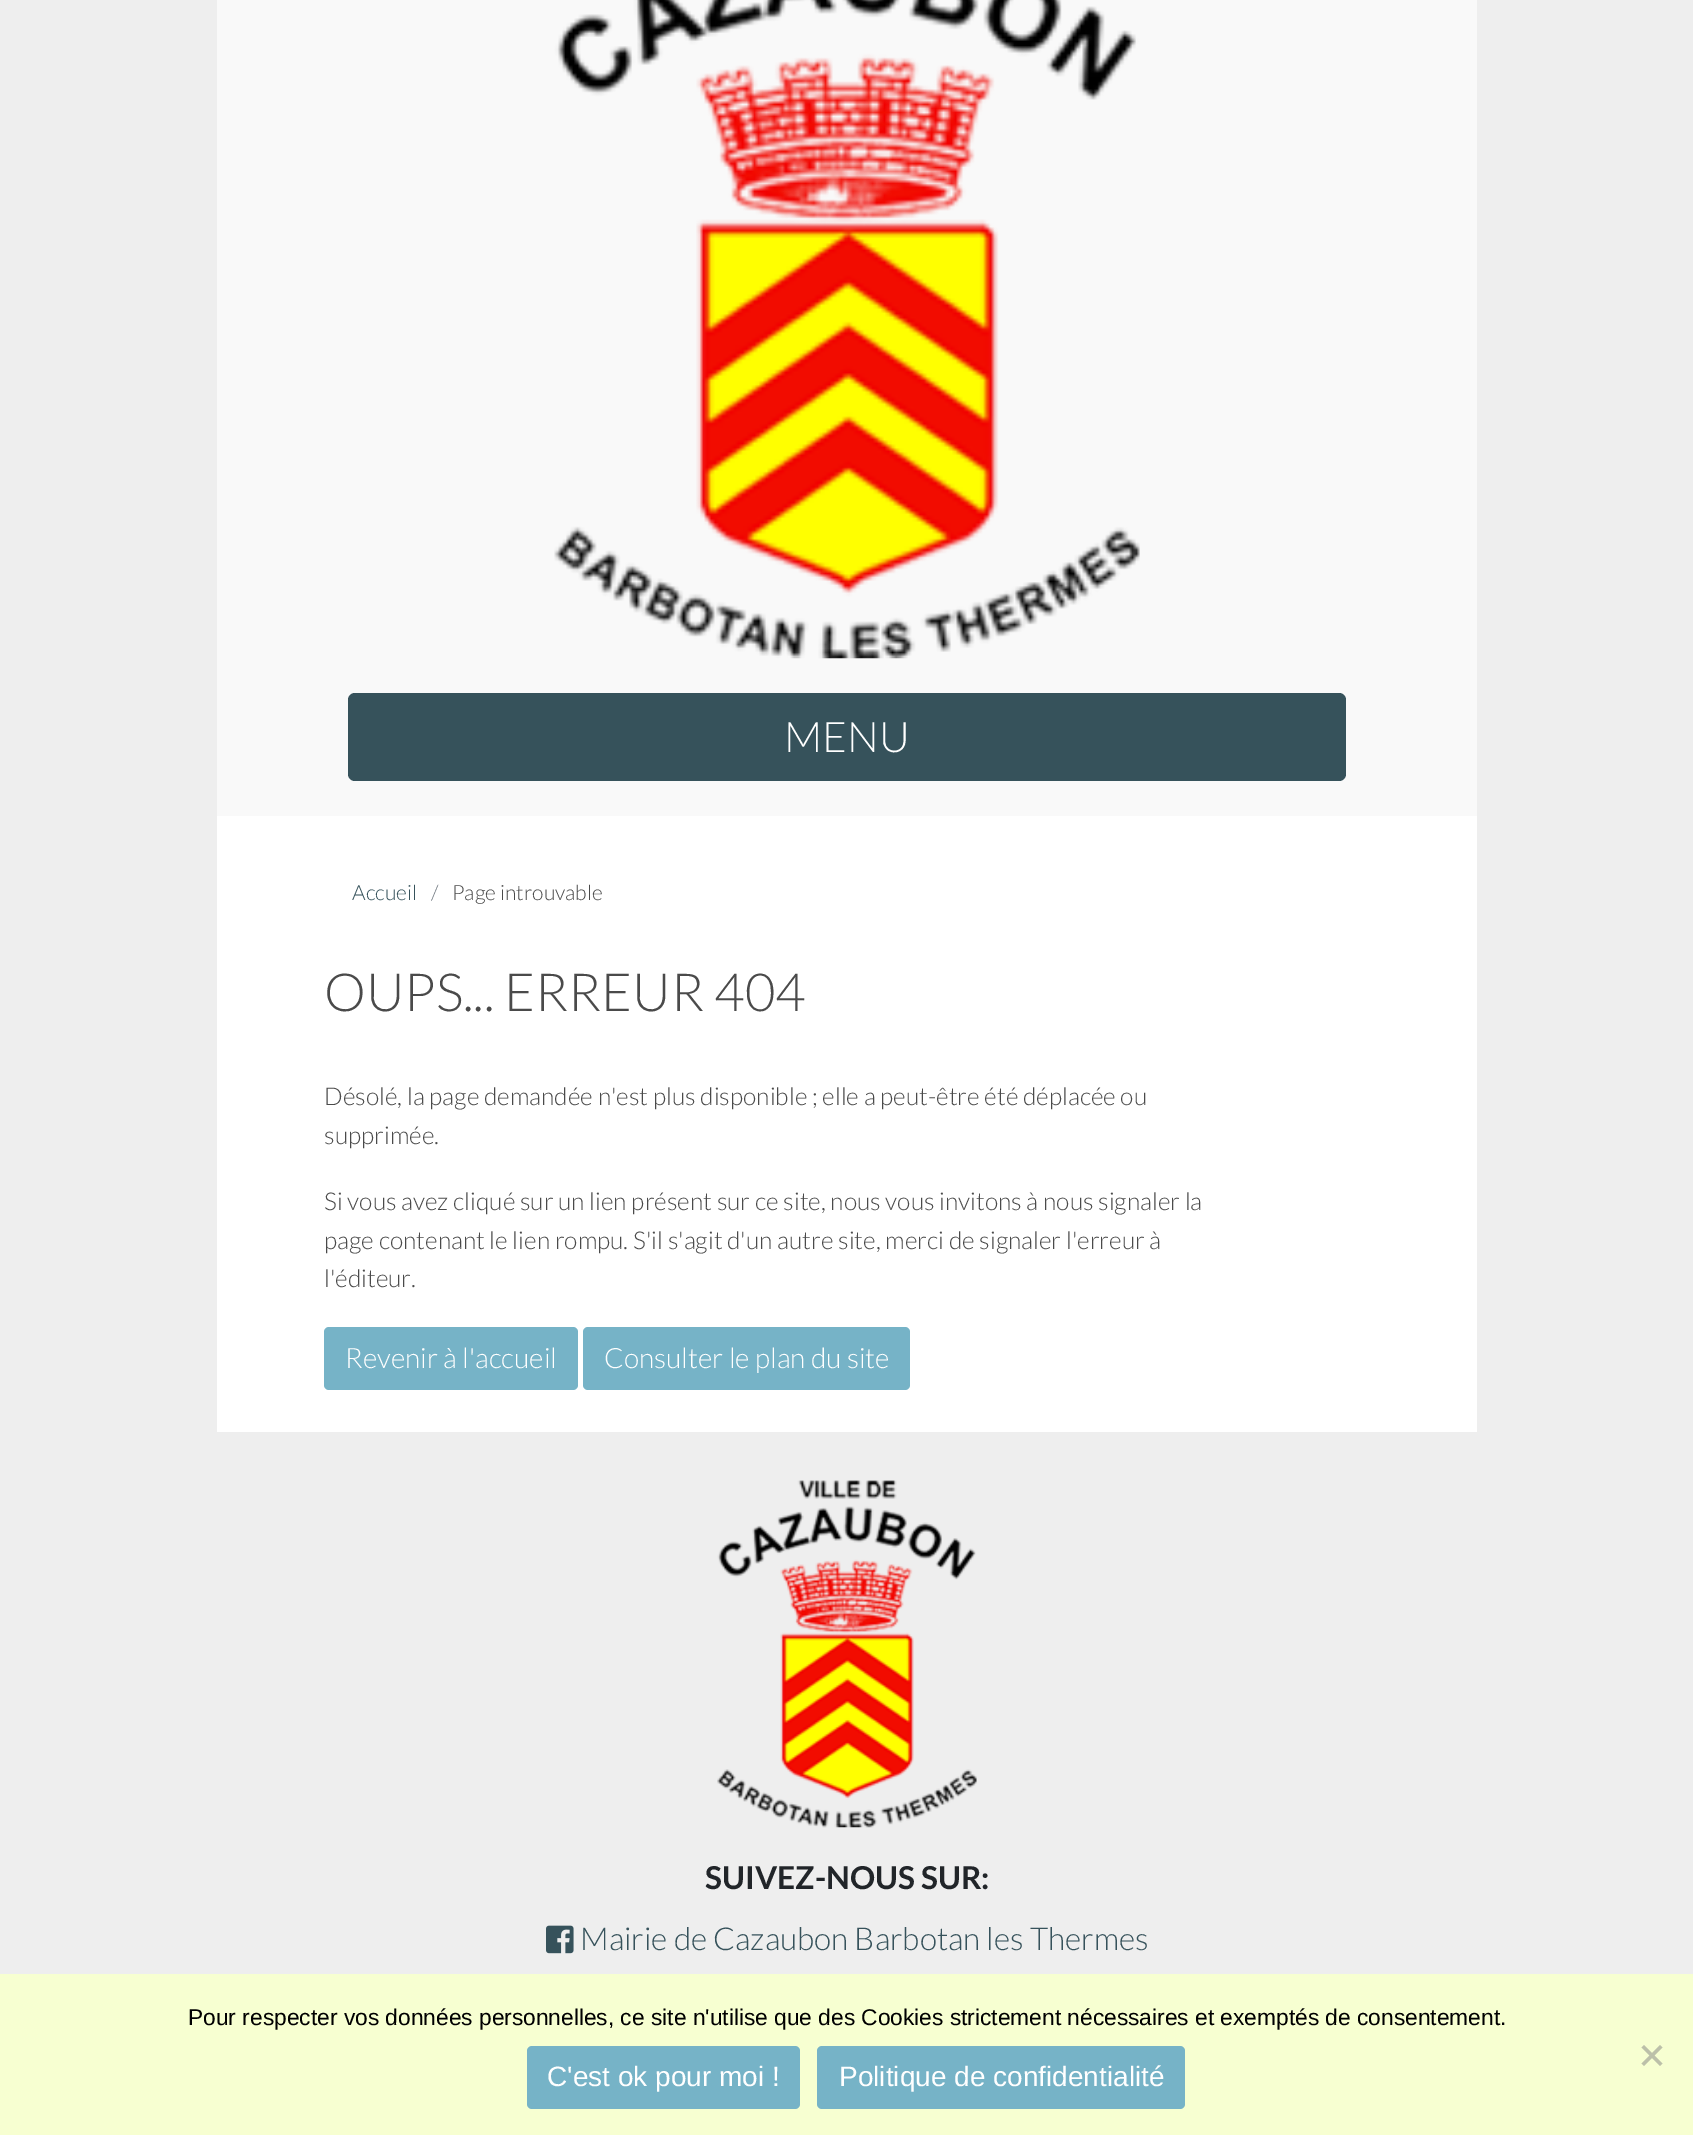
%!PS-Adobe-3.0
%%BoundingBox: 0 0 1693 2135
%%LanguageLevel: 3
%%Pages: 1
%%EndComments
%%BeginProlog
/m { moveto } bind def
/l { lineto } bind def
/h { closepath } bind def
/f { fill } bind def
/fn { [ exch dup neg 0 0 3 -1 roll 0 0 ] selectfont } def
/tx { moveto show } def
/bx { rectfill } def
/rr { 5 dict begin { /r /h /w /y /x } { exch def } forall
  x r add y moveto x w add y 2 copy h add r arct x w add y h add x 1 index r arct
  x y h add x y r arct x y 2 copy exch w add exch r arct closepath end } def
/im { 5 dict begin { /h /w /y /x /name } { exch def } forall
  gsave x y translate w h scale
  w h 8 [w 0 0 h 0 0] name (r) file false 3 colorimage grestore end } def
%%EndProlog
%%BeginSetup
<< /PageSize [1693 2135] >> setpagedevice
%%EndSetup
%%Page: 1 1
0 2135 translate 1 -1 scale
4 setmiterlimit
0.933 setgray
0 0 1693 2135 bx
0.976 setgray
217 0 1260 816 bx
(image0.raw) 554 0 586 659 im
0.212 0.322 0.357 setrgbcolor
348 693 998 88 7 rr f
/Lato-Light 42 fn
1 setgray
(MENU) 784 752 tx
217 816 1260 616 bx
/Lato-Light 21 fn
0.212 0.322 0.357 setrgbcolor
(Accueil) 352 900 tx
0.424 0.459 0.49 setrgbcolor
(/) 431 900 tx
0.29 setgray
(Page introuvable) 452 900 tx
/Lato-Light 52.5 fn
(OUPS... ERREUR 404) 324 1011 tx
/Lato-Light 24.5 fn
(Désolé, la page demandée n'est plus disponible ; elle a peut-être été déplacée ou) 324 1105 tx
(supprimée.) 324 1144 tx
(Si vous avez cliqué sur un lien présent sur ce site, nous vous invitons à nous signaler la) 324 1210 tx
(page contenant le lien rompu. S'il s'agit d'un autre site, merci de signaler l'erreur à) 324 1249 tx
(l'éditeur.) 324 1287 tx
0.463 0.702 0.78 setrgbcolor
324 1327 254 63 5 rr f
/Lato-Light 28 fn
1 setgray
(Revenir à l'accueil) 345 1368 tx
0.463 0.702 0.78 setrgbcolor
583 1327 327 63 5 rr f
1 setgray
(Consulter le plan du site) 604 1368 tx
(image1.raw) 717 1480 260 348 im
/Lato-Bold 31.5 fn
0.129 0.145 0.161 setrgbcolor
(SUIVEZ-NOUS SUR:) 705 1889 tx
(image2.raw) 546 1925 28 29 im
/Lato-Light 31.5 fn
0.212 0.322 0.357 setrgbcolor
(Mairie de Cazaubon Barbotan les Thermes) 580 1950 tx
0.969 1 0.82 setrgbcolor
0 1974 1693 161 bx
/LiberationSans-Regular 22.75 fn
0 setgray
(Pour respecter vos données personnelles, ce site n'utilise que des Cookies strictement nécessaires et exemptés de consentement.) 188 2025 tx
0.737 0.753 0.663 setrgbcolor
1660 2045 m 1662.5 2047.5 l 1644 2066 l 1641.5 2063.5 l h f
1641.5 2047.5 m 1644 2045 l 1662.5 2063.5 l 1660 2066 l h f
0.463 0.702 0.78 setrgbcolor
527 2046 273 63 5 rr f
/LiberationSans-Regular 28 fn
1 setgray
(C'est ok pour moi !) 547 2086 tx
0.463 0.702 0.78 setrgbcolor
817 2046 368 63 5 rr f
1 setgray
(Politique de confidentialité) 839 2086 tx
showpage
%%EOF
